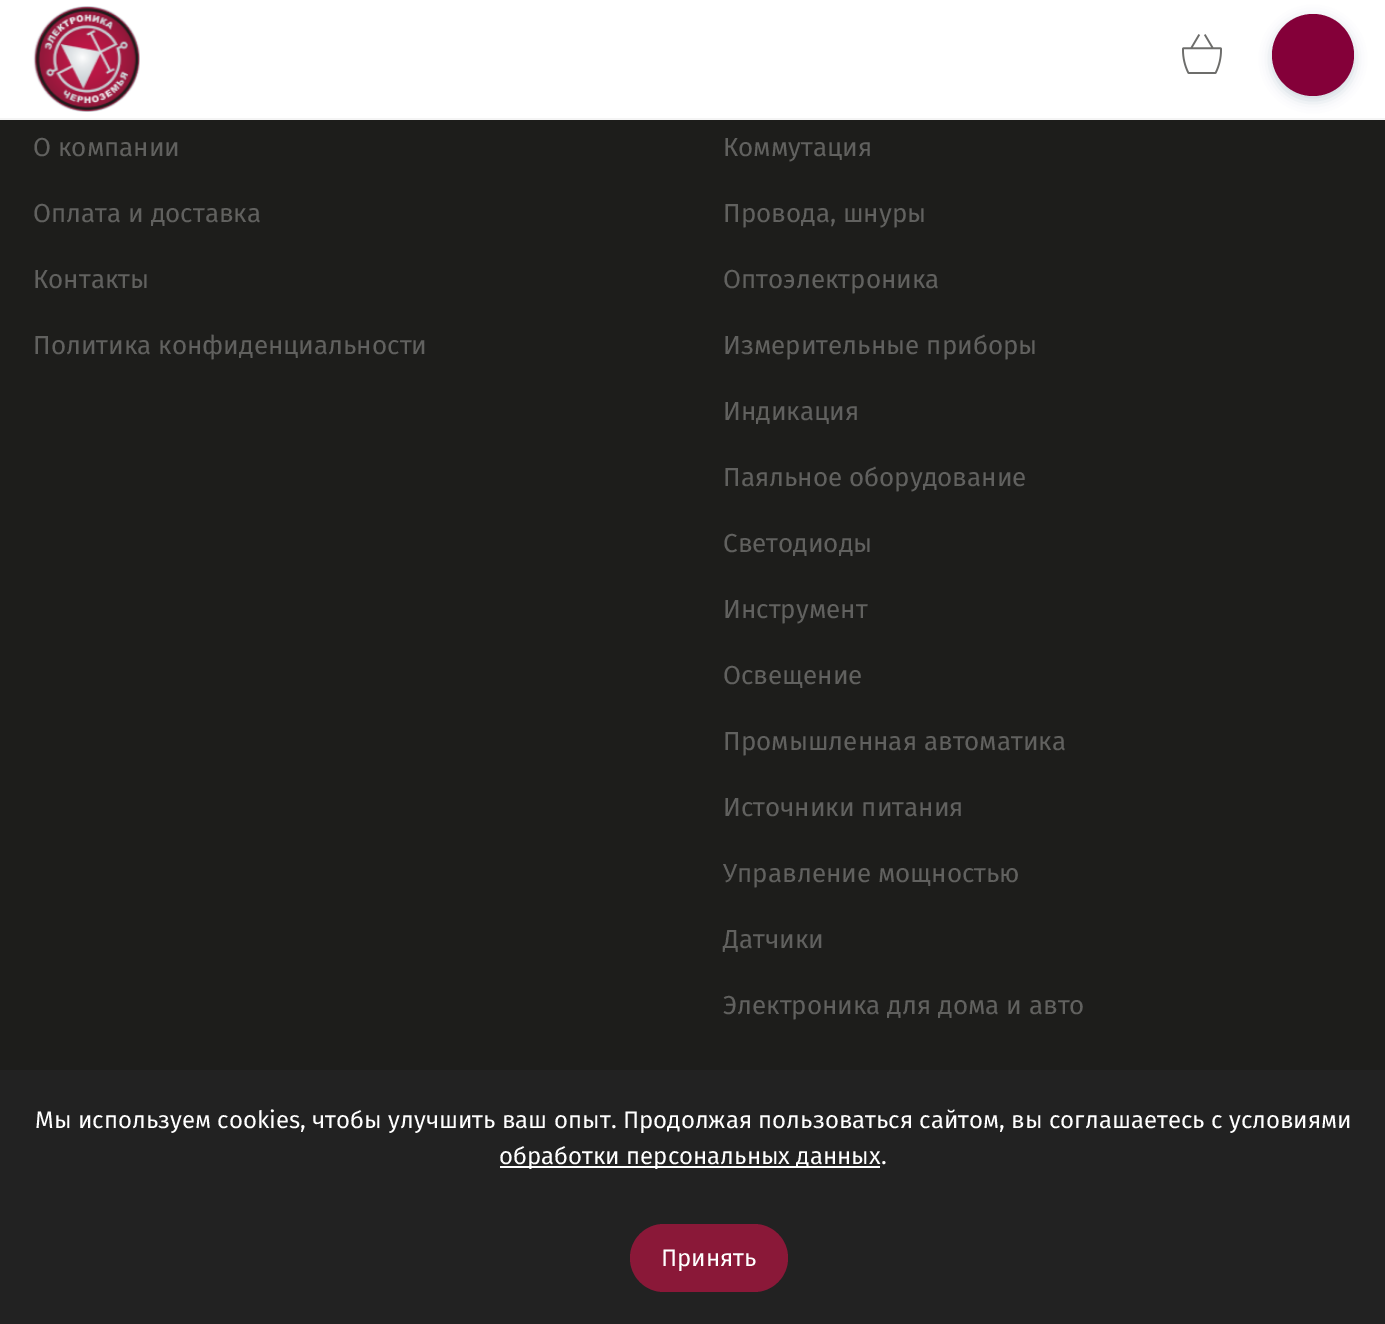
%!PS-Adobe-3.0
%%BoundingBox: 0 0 1385 1324
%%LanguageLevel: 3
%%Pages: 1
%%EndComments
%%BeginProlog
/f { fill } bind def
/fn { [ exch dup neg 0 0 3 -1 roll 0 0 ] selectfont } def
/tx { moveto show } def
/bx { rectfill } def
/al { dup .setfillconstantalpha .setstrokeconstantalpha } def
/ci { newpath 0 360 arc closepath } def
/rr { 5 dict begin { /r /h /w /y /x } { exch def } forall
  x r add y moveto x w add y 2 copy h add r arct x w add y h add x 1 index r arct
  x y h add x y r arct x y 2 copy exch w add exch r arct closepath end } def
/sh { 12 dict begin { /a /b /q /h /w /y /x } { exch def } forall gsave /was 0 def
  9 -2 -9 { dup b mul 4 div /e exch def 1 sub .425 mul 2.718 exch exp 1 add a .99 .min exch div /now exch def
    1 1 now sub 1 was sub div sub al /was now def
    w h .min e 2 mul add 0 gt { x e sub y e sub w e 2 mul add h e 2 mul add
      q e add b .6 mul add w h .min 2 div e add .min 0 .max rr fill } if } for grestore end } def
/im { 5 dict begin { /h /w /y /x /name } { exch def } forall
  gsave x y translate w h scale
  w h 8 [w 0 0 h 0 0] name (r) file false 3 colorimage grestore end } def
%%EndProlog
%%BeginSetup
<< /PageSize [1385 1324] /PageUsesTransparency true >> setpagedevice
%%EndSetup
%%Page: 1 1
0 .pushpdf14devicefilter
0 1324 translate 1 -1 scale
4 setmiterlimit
0.114 0.114 0.106 setrgbcolor
0 0 1385 1324 bx
1 setgray
0 0 1385 118 bx
0.957 setgray
0 118 1385 2 bx
(image0.raw) 33 6 107 106 im
(image1.raw) 1182 34 40 40 im
0 0.212 0.333 setrgbcolor
1272 18 82 82 41 6 0.2 sh
0.518 0 0.224 setrgbcolor
1313 55 41 ci f
/FiraSans-Regular 26 fn
0.38 0.38 0.373 setrgbcolor
(О компании) 33 156 tx
(Оплата и доставка) 33 222 tx
(Контакты) 33 288 tx
(Политика конфиденциальности) 33 354 tx
(Коммутация) 723 156 tx
(Провода, шнуры) 723 222 tx
(Оптоэлектроника) 723 288 tx
(Измерительные приборы) 723 354 tx
(Индикация) 723 420 tx
(Паяльное оборудование) 723 486 tx
(Светодиоды) 723 552 tx
(Инструмент) 723 618 tx
(Освещение) 723 684 tx
(Промышленная автоматика) 723 750 tx
(Источники питания) 723 816 tx
(Управление мощностью) 723 882 tx
(Датчики) 723 948 tx
(Электроника для дома и авто) 723 1014 tx
0.133 setgray
0 1070 1385 254 bx
/FiraSans-Regular 24 fn
1 setgray
(Мы используем cookies, чтобы улучшить ваш опыт. Продолжая пользоваться сайтом, вы соглашаетесь с условиями) 35 1128 tx
500 1166 380 2 bx
(обработки персональных данных.) 499 1164 tx
0.541 0.094 0.22 setrgbcolor
630 1224 158 68 34 rr f
1 setgray
(Принять) 661 1266 tx
.poppdf14devicefilter showpage
%%EOF
